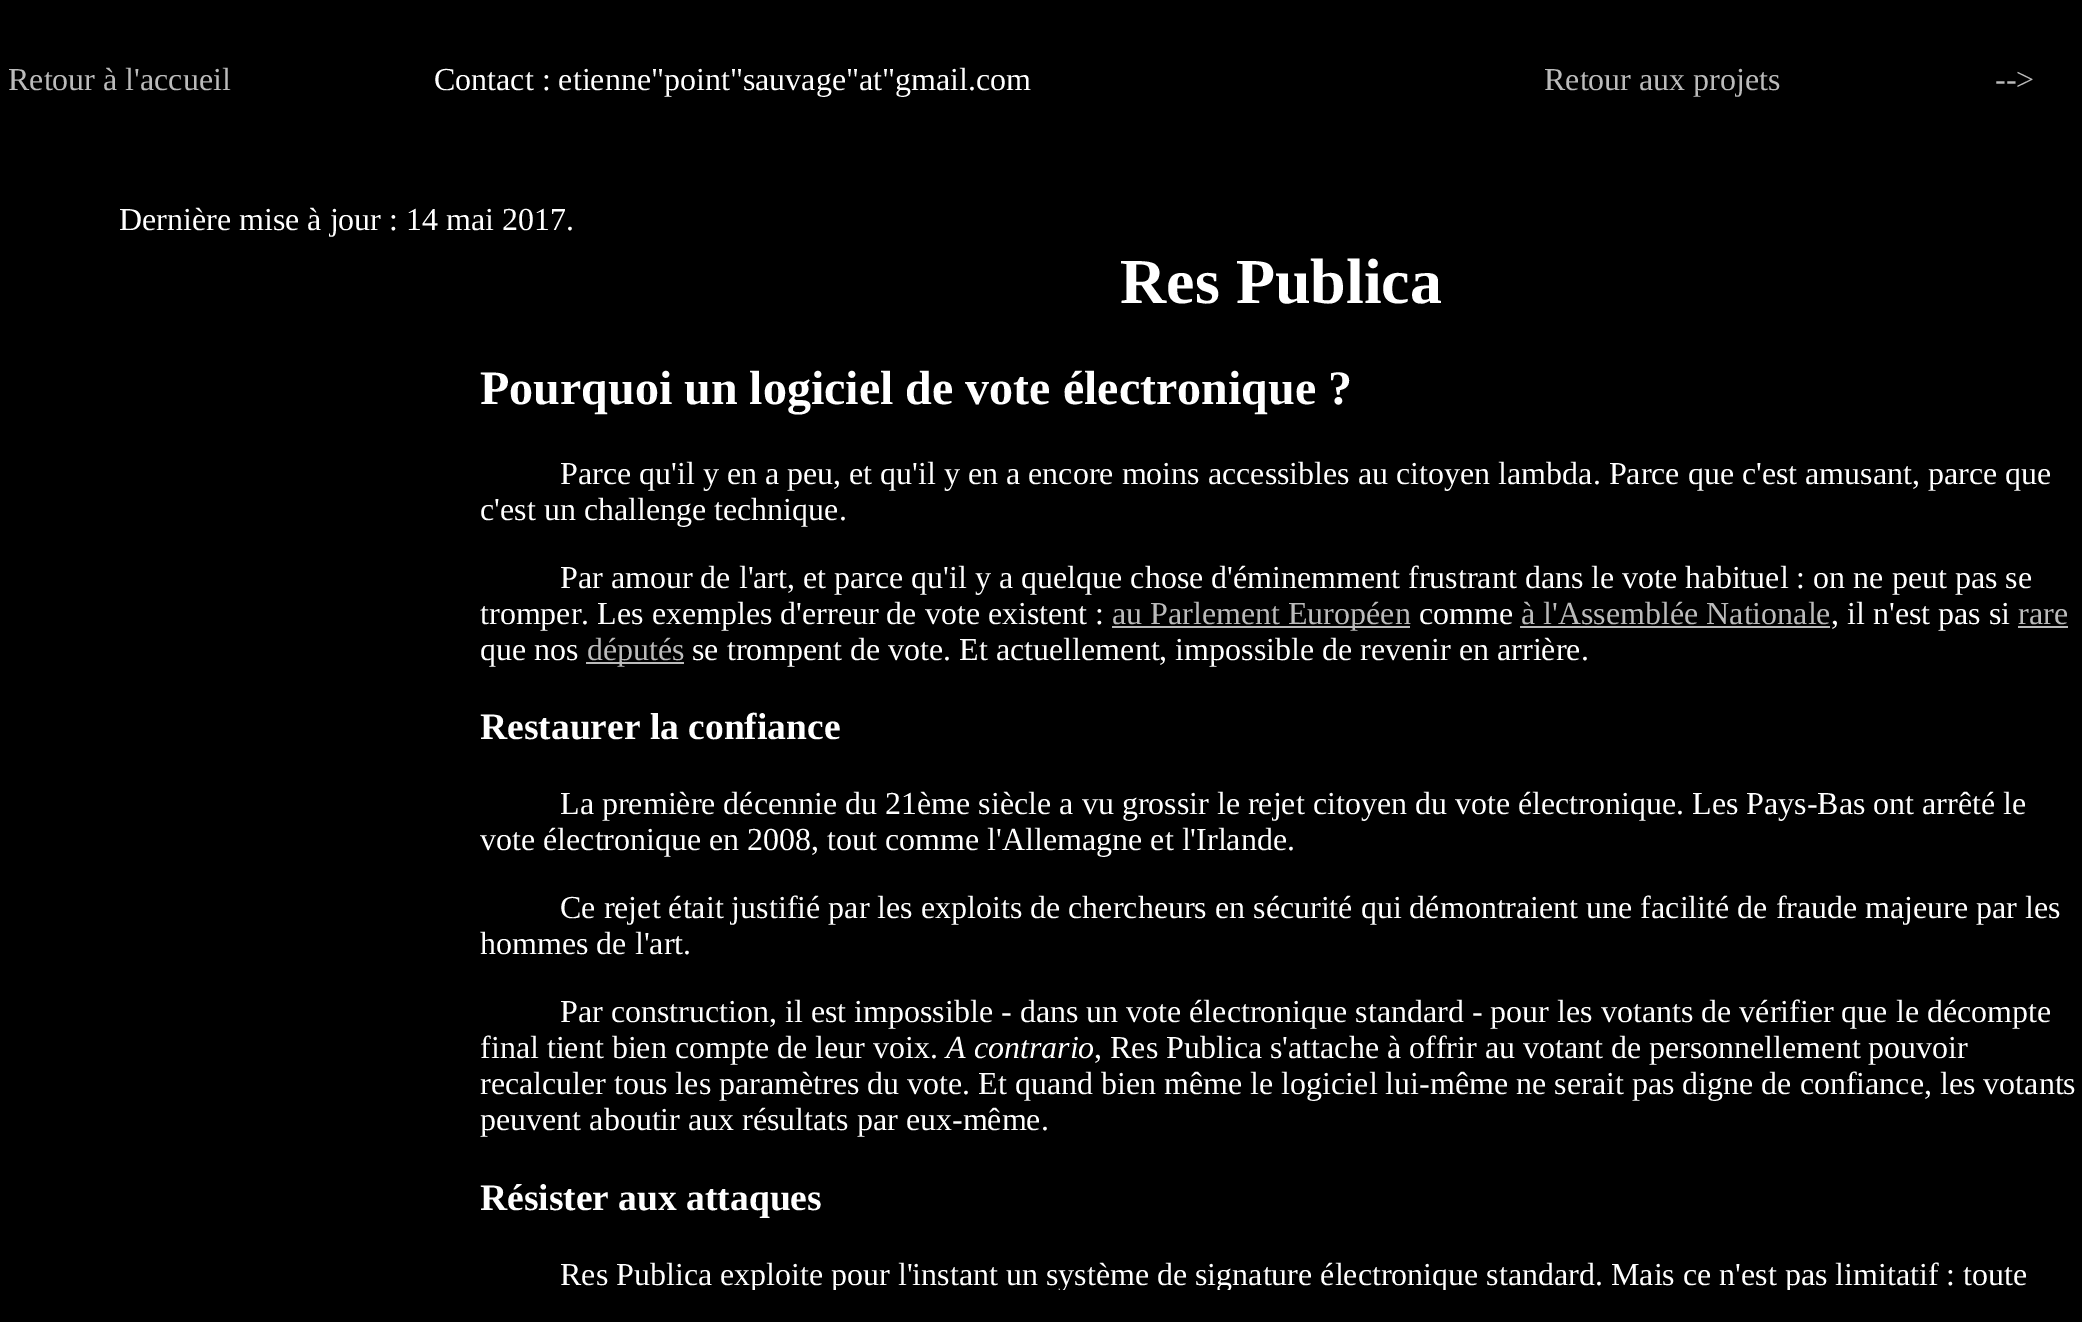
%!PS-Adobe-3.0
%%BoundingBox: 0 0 2082 1322
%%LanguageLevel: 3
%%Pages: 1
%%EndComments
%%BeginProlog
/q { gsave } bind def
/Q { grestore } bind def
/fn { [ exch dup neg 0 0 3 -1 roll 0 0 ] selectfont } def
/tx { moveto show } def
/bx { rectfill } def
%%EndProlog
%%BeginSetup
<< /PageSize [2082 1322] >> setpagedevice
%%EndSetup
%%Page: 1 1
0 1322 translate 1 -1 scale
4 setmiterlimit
0 setgray
0 0 2082 1322 bx
/LiberationSerif-Regular 32 fn
0.733 setgray
(Retour à l'accueil) 8 90 tx
1 setgray
(Contact : etienne"point"sauvage"at"gmail.com) 434 90 tx
0.733 setgray
(Retour aux projets) 1544 90 tx
(-->) 1995 90 tx
1 setgray
(Dernière mise à jour : 14 mai 2017.) 119 230 tx
/LiberationSerif-Bold 64 fn
(Res Publica) 1120 303 tx
/LiberationSerif-Bold 48 fn
(Pourquoi un logiciel de vote électronique ?) 480 404 tx
/LiberationSerif-Regular 32 fn
(Parce qu'il y en a peu, et qu'il y en a encore moins accessibles au citoyen lambda. Parce que c'est amusant, parce que) 560 484 tx
(c'est un challenge technique.) 480 520 tx
(Par amour de l'art, et parce qu'il y a quelque chose d'éminemment frustrant dans le vote habituel : on ne peut pas se) 560 588 tx
(tromper. Les exemples d'erreur de vote existent :) 480 624 tx
0.733 setgray
1112 626 298 2 bx
(au Parlement Européen) 1112 624 tx
1 setgray
(comme) 1419 624 tx
0.733 setgray
(à l'Assemblée Nationale) 1521 624 tx
1520 626 310 2 bx
1 setgray
(, il n'est pas si) 1831 624 tx
0.733 setgray
(rare) 2018 624 tx
2018 626 50 2 bx
1 setgray
(que nos) 480 660 tx
0.733 setgray
586 662 98 2 bx
(députés) 587 660 tx
1 setgray
(se trompent de vote. Et actuellement, impossible de revenir en arrière.) 692 660 tx
/LiberationSerif-Bold 37.5 fn
(Restaurer la confiance) 480 739 tx
/LiberationSerif-Regular 32 fn
(La première décennie du 21ème siècle a vu grossir le rejet citoyen du vote électronique. Les Pays-Bas ont arrêté le) 560 814 tx
(vote électronique en 2008, tout comme l'Allemagne et l'Irlande.) 480 850 tx
(Ce rejet était justifié par les exploits de chercheurs en sécurité qui démontraient une facilité de fraude majeure par les) 560 918 tx
(hommes de l'art.) 480 954 tx
(Par construction, il est impossible - dans un vote électronique standard - pour les votants de vérifier que le décompte) 560 1022 tx
(final tient bien compte de leur voix.) 480 1058 tx
/LiberationSerif-Italic 32 fn
(A contrario) 946 1058 tx
/LiberationSerif-Regular 32 fn
(, Res Publica s'attache à offrir au votant de personnellement pouvoir) 1094 1058 tx
(recalculer tous les paramètres du vote. Et quand bien même le logiciel lui-même ne serait pas digne de confiance, les votants) 480 1094 tx
(peuvent aboutir aux résultats par eux-même.) 480 1130 tx
/LiberationSerif-Bold 37.5 fn
(Résister aux attaques) 480 1210 tx
q
400 202 1682 1088 rectclip
/LiberationSerif-Regular 32 fn
(Res Publica exploite pour l'instant un système de signature électronique standard. Mais ce n'est pas limitatif : toute) 560 1285 tx
Q
showpage
%%EOF
